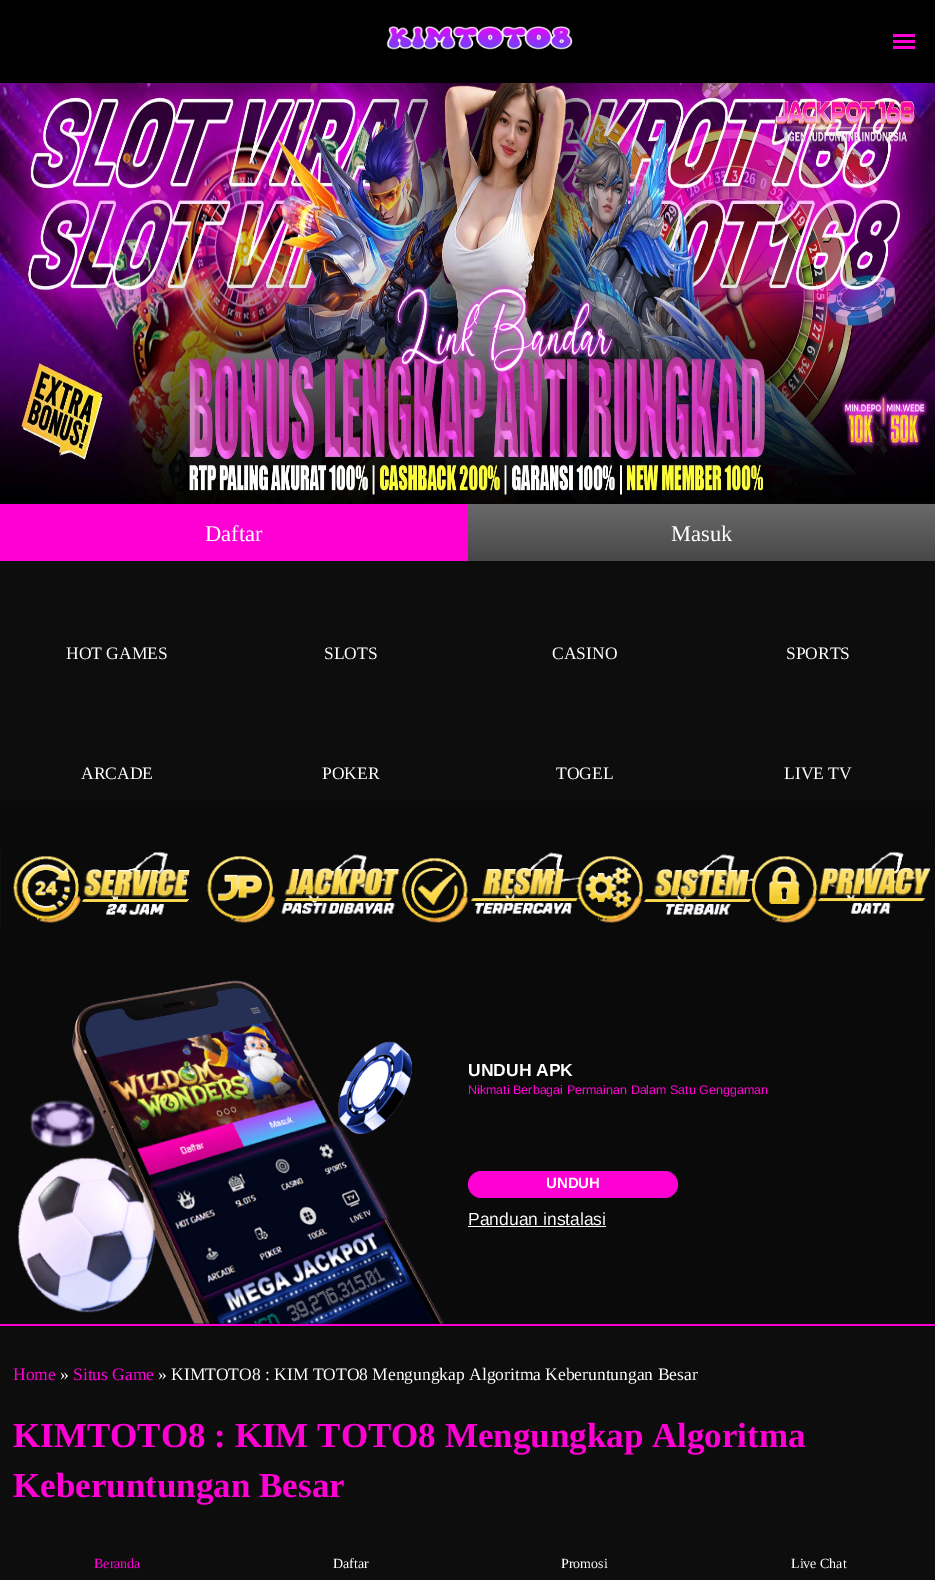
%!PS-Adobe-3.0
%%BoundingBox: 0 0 935 1580
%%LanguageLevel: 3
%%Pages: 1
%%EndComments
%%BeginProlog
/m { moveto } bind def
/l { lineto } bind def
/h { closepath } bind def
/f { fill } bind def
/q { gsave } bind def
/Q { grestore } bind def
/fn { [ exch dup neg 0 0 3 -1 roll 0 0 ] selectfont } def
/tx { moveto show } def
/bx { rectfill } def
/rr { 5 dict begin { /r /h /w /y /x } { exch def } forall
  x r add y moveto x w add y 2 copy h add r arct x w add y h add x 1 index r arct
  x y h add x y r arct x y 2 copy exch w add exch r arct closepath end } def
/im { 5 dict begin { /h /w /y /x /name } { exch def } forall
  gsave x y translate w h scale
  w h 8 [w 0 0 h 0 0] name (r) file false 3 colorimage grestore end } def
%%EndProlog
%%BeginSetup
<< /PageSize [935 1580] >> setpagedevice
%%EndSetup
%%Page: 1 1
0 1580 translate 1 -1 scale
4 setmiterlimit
0.039 setgray
0 0 935 1580 bx
0 setgray
0 0 935 83 bx
(image0.raw) 386 26 187 24 im
1 0 0.831 setrgbcolor
893 40 22 3 bx
893 34 22 3 bx
893 46 22 3 bx
(image1.raw) 0 83 935 421 im
0 504 468 57 bx
/LiberationSerif-Regular 22.5 fn
1 setgray
(Daftar) 205 541 tx
q 468 504 m 935 504 l 935 561 l 468 561 l h clip newpath
<< /ShadingType 2 /ColorSpace /DeviceRGB /Coords [701 504 701 561] /Extend [true true] /Function << /FunctionType 2 /Domain [0 1] /C0 [0.416 0.416 0.416] /C1 [0.282 0.282 0.282] /N 1 >> >> shfill Q
(Masuk) 671 541 tx
0.051 setgray
0 561 935 240 bx
/LiberationSerif-Regular 17.5 fn
1 setgray
(HOT GAMES) 66 659 tx
(SLOTS) 324 659 tx
(CASINO) 552 659 tx
(SPORTS) 786 659 tx
(ARCADE) 81 779 tx
(POKER) 322 779 tx
(TOGEL) 556 779 tx
(LIVE TV) 784 779 tx
(image2.raw) 0 852 935 74 im
(image3.raw) 17 980 427 344 im
/LiberationSans-Bold 17.5 fn
(UNDUH APK) 468 1076 tx
/LiberationSans-Regular 12.5 fn
1 0 0.831 setrgbcolor
(Nikmati Berbagai Permainan Dalam Satu Genggaman) 468 1094 tx
468 1171 210 27 13.5 rr f
/LiberationSans-Bold 15 fn
1 setgray
(UNDUH) 546 1188 tx
/LiberationSans-Regular 17.5 fn
(Panduan instalasi) 468 1225 tx
468 1226 138 1 bx
1 0 0.831 setrgbcolor
0 1324 935 2 bx
0.051 setgray
0 1326 935 254 bx
/LiberationSerif-Regular 17.5 fn
1 0 0.831 setrgbcolor
(Home) 13 1380 tx
1 setgray
(») 60 1380 tx
1 0 0.831 setrgbcolor
(Situs Game) 73 1380 tx
1 setgray
(» KIMTOTO8 : KIM TOTO8 Mengungkap Algoritma Keberuntungan Besar) 158 1380 tx
/LiberationSerif-Bold 35 fn
1 0 0.831 setrgbcolor
(KIMTOTO8 : KIM TOTO8 Mengungkap Algoritma) 13 1447 tx
(Keberuntungan Besar) 13 1497 tx
/LiberationSerif-Regular 14 fn
(Beranda) 94 1568 tx
1 setgray
(Daftar) 333 1568 tx
(Promosi) 561 1568 tx
(Live Chat) 791 1568 tx
showpage
%%EOF
